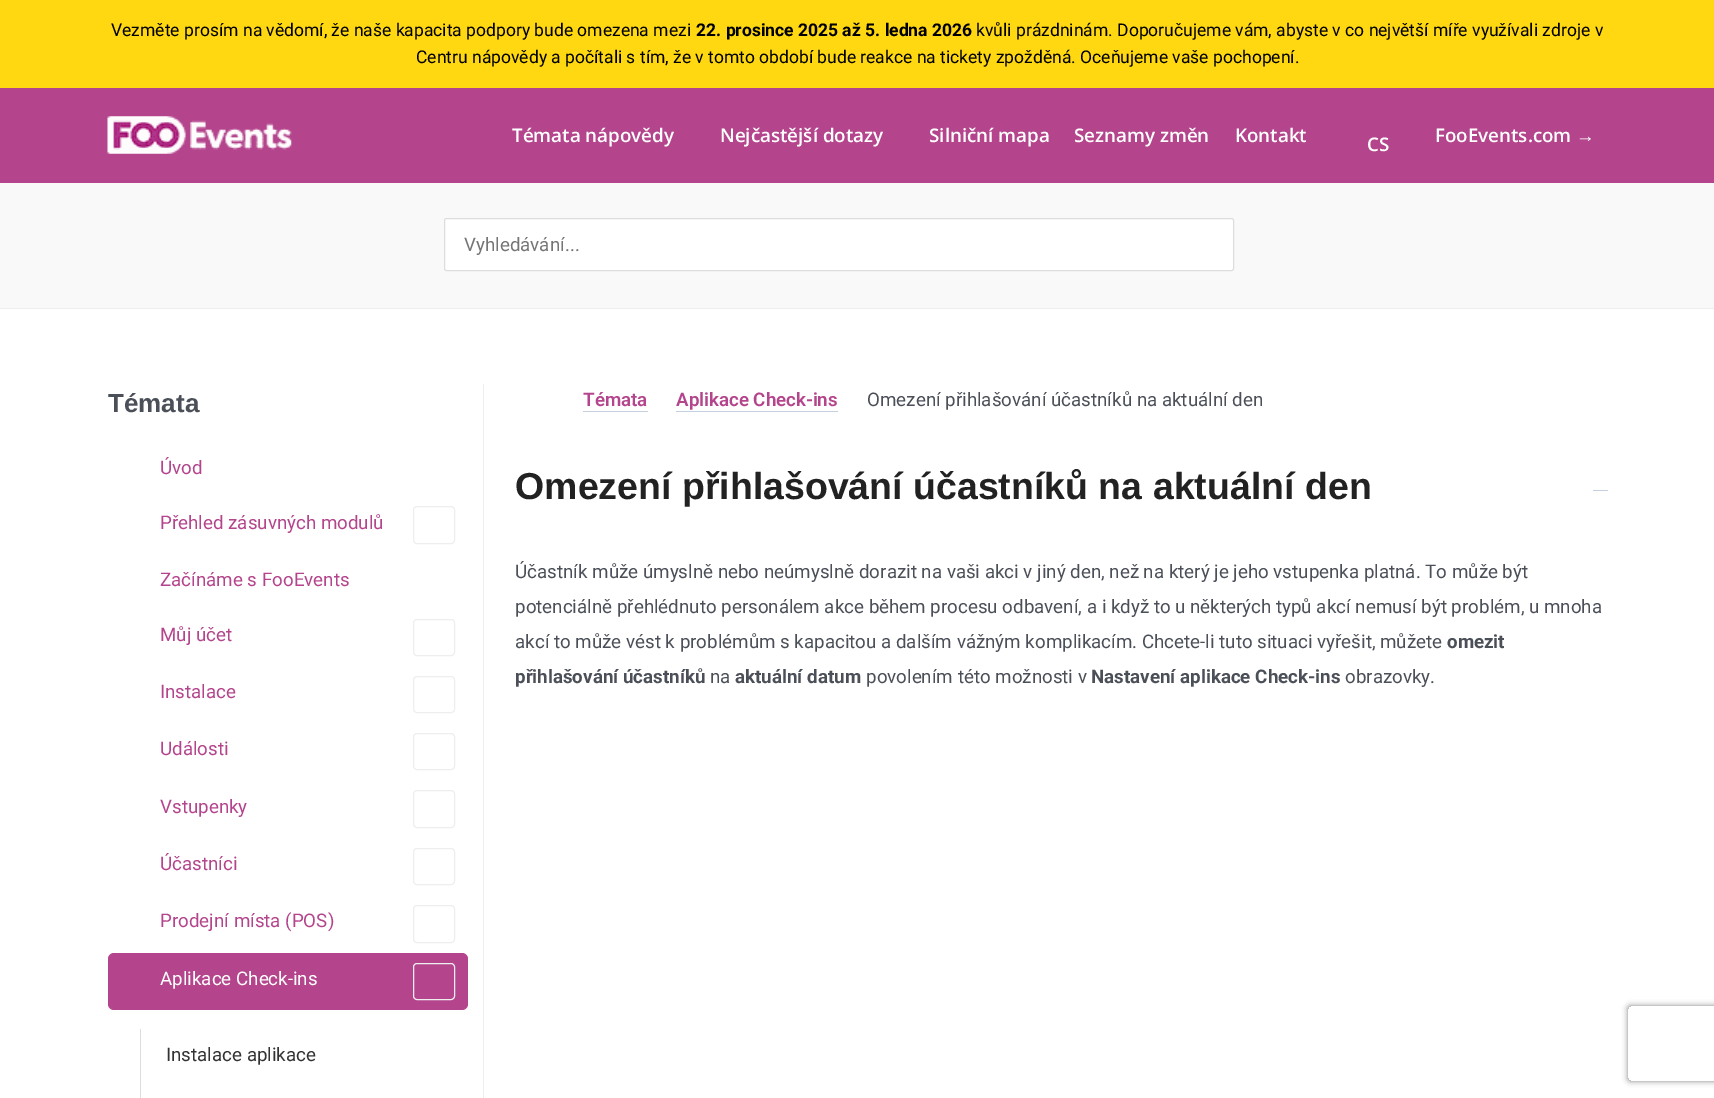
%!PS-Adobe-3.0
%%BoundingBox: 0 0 1714 1098
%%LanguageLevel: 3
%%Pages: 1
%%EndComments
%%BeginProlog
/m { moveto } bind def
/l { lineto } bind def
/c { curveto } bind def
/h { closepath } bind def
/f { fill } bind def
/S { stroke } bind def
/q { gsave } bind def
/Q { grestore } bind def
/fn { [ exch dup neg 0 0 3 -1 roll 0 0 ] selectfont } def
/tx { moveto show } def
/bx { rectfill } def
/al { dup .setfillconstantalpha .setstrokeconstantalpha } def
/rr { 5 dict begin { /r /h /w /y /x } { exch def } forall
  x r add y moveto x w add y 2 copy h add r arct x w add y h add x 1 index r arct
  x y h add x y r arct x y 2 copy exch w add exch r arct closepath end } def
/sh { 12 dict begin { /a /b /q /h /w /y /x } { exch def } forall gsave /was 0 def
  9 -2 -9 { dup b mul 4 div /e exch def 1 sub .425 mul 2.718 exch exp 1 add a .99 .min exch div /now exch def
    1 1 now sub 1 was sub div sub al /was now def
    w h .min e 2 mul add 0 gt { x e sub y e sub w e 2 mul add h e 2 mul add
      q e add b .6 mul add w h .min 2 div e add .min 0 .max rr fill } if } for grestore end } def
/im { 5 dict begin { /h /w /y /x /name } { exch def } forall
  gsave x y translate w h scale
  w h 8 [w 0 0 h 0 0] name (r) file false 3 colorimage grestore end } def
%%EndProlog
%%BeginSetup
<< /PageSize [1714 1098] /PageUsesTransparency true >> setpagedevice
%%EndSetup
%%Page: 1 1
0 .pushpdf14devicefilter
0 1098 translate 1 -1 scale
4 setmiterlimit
1 setgray
0 0 1714 1098 bx
1 0.847 0.071 setrgbcolor
0 0 1714 88 bx
/Roboto-Regular 17.5 fn
0 setgray
(Vezměte prosím na vědomí, že naše kapacita podpory bude omezena mezi) 111 36 tx
/Roboto-Bold 17.5 fn
(22. prosince 2025 až 5. ledna 2026) 696 36 tx
/Roboto-Regular 17.5 fn
(kvůli prázdninám. Doporučujeme vám, abyste v co největší míře využívali zdroje v) 976 36 tx
(Centru nápovědy a počítali s tím, že v tomto období bude reakce na tickety zpožděná. Oceňujeme vaše pochopení.) 416 63 tx
0.706 0.271 0.553 setrgbcolor
0 88 1714 95 bx
(image0.raw) 107 116 185 38 im
/OpenSans-SemiBold 18.75 fn
1 setgray
(Témata nápovědy) 512 142 tx
(Nejčastější dotazy) 720 142 tx
(Silniční mapa) 929 142 tx
(Seznamy změn) 1074 142 tx
(Kontakt) 1235 142 tx
(FooEvents.com) 1435 142 tx
/LiberationSans-Bold 18.75 fn
(→) 1576 142 tx
/OpenSans-SemiBold 18.75 fn
(CS) 1367 151 tx
0.976 setgray
0 183 1714 125 bx
0.933 setgray
0 308 1714 1 bx
1 setgray
444.5 218.5 789 52 2 rr q f Q
0.867 setgray
S
/Roboto-Regular 18.75 fn
0.459 setgray
(Vyhledávání...) 464 251 tx
/LiberationSans-Bold 26 fn
0.294 0.31 0.345 setrgbcolor
(Témata) 108 412 tx
/Roboto-Regular 18.75 fn
0.706 0.271 0.553 setrgbcolor
(Úvod) 160 474 tx
(Přehled zásuvných modulů) 160 529 tx
0.933 setgray
413.5 506.5 41 37 3.5 rr S
0.706 0.271 0.553 setrgbcolor
(Začínáme s FooEvents) 160 586 tx
(Můj účet) 160 641 tx
0.933 setgray
413.5 619.5 41 36 3.5 rr S
0.706 0.271 0.553 setrgbcolor
(Instalace) 160 698 tx
0.933 setgray
413.5 676.5 41 36 3.5 rr S
0.706 0.271 0.553 setrgbcolor
(Události) 160 755 tx
0.933 setgray
413.5 733.5 41 36 3.5 rr S
0.706 0.271 0.553 setrgbcolor
(Vstupenky) 160 813 tx
0.933 setgray
413.5 790.5 41 37 3.5 rr S
0.706 0.271 0.553 setrgbcolor
(Účastníci) 160 870 tx
0.933 setgray
413.5 848.5 41 36 3.5 rr S
0.706 0.271 0.553 setrgbcolor
(Prodejní místa \(POS\)) 160 927 tx
0.933 setgray
413.5 905.5 41 37 3.5 rr S
0.706 0.271 0.553 setrgbcolor
108 953 360 57 6 rr f
1 setgray
(Aplikace Check-ins) 160 985 tx
0.933 setgray
413.5 963.5 41 36 3.5 rr S
0.867 setgray
140 1029 1 69 bx
0.2 setgray
(Instalace aplikace) 166 1061 tx
0.933 setgray
483 384 1 714 bx
/Roboto-SemiBold 18.75 fn
0.706 0.271 0.553 setrgbcolor
(Témata) 583 406 tx
0.769 0.816 0.875 setrgbcolor
583 411 65 1 bx
0.706 0.271 0.553 setrgbcolor
(Aplikace Check-ins) 676 406 tx
0.769 0.816 0.875 setrgbcolor
676 411 162 1 bx
/Roboto-Regular 18.75 fn
0.294 0.31 0.345 setrgbcolor
(Omezení přihlašování účastníků na aktuální den) 867 406 tx
/LiberationSans-Bold 37.5 fn
0.133 setgray
(Omezení přihlašování účastníků na aktuální den) 515 499 tx
0.769 0.816 0.875 setrgbcolor
1593 490 15 1 bx
/Roboto-Regular 18.75 fn
0.294 0.31 0.345 setrgbcolor
(Účastník může úmyslně nebo neúmyslně dorazit na vaši akci v jiný den, než na který je jeho vstupenka platná. To může být) 515 578 tx
(potenciálně přehlédnuto personálem akce během procesu odbavení, a i když to u některých typů akcí nemusí být problém, u mnoha) 515 613 tx
(akcí to může vést k problémům s kapacitou a dalším vážným komplikacím. Chcete-li tuto situaci vyřešit, můžete) 515 648 tx
/Roboto-Bold 18.75 fn
(omezit) 1447 648 tx
(přihlašování účastníků) 515 683 tx
/Roboto-Regular 18.75 fn
(na) 710 683 tx
/Roboto-Bold 18.75 fn
(aktuální datum) 735 683 tx
/Roboto-Regular 18.75 fn
(povolením této možnosti v) 866 683 tx
/Roboto-Bold 18.75 fn
(Nastavení aplikace Check-ins) 1091 683 tx
/Roboto-Regular 18.75 fn
(obrazovky.) 1345 683 tx
q
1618 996 m 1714 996 l 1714 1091 l 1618 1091 l h 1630.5 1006 m 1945.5 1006 l 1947 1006 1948 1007 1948 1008.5 c 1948 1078.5 l 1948 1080 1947 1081 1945.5 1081 c 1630.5 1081 l 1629 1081 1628 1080 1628 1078.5 c 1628 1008.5 l 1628 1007 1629 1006 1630.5 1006 c h eoclip newpath
0.502 setgray
1628 1006 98 75 2.5 3 1 sh
Q
.poppdf14devicefilter showpage
%%EOF
